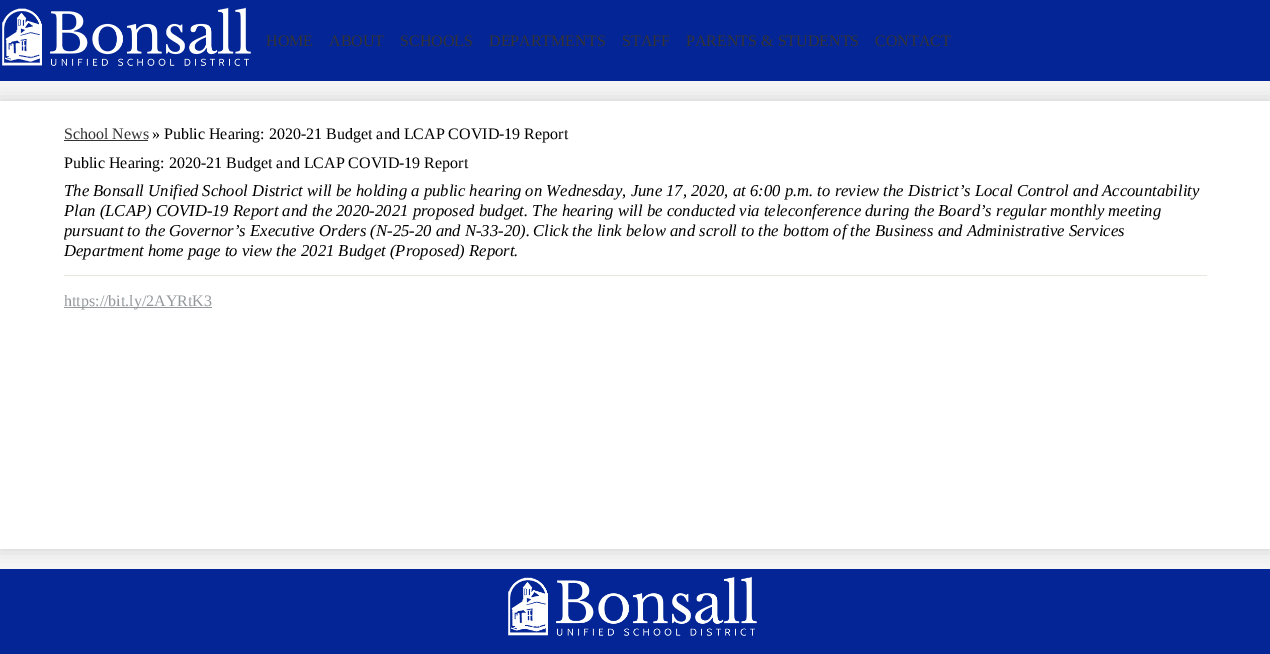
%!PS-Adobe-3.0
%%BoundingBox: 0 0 1270 654
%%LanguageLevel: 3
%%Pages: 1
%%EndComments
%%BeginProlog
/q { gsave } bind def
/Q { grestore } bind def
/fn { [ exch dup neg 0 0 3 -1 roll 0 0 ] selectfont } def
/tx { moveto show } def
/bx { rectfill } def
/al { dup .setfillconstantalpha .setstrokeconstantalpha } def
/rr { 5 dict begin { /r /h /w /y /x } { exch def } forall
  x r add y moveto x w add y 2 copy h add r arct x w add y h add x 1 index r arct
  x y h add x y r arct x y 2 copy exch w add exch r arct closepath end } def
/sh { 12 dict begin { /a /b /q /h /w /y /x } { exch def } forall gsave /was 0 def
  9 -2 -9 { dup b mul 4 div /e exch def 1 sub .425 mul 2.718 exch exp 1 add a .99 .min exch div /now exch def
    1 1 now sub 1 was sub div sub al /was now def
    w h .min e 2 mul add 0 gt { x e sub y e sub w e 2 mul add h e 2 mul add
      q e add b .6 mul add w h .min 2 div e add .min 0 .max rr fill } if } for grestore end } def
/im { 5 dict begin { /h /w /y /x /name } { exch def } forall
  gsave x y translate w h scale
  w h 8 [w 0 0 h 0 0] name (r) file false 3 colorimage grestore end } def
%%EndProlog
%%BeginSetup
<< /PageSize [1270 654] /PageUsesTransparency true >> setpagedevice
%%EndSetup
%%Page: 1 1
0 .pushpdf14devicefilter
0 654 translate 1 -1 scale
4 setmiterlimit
0.961 setgray
0 0 1270 654 bx
0.016 0.145 0.588 setrgbcolor
0 569 1270 85 bx
0 setgray
0 101 1270 448 0 8 0.15 sh
0.016 0.145 0.588 setrgbcolor
0 0 1270 81 bx
(image0.raw) 2 7 249 59 im
/LiberationSerif-Regular 16 fn
0.2 setgray
(HOME) 266 46 tx
(ABOUT) 329 46 tx
(SCHOOLS) 400 46 tx
(DEPARTMENTS) 489 46 tx
(STAFF) 622 46 tx
(PARENTS & STUDENTS) 686 46 tx
(CONTACT) 875 46 tx
1 setgray
0 101 1270 448 bx
0.2 setgray
(School News) 64 139 tx
64 140 84 1 bx
0 setgray
(» Public Hearing: 2020-21 Budget and LCAP COVID-19 Report) 152 139 tx
(Public Hearing: 2020-21 Budget and LCAP COVID-19 Report) 64 168 tx
/LiberationSerif-Italic 16.67 fn
(The Bonsall Unified School District will be holding a public hearing on Wednesday, June 17, 2020, at 6:00 p.m. to review the District’s Local Control and Accountability) 64 196 tx
(Plan \(LCAP\) COVID-19 Report and the 2020-2021 proposed budget. The hearing will be conducted via teleconference during the Board’s regular monthly meeting) 64 216 tx
q
64 181 1143 145 rectclip
(pursuant to the Governor’s Executive Orders \(N-25-20 and N-33-20\).) 64 236 tx
Q
(Click the link below and scroll to the bottom of the Business and Administrative Services) 533 236 tx
(Department home page to view the 2021 Budget \(Proposed\) Report.) 64 256 tx
0.898 0.906 0.882 setrgbcolor
64 275 1143 1 bx
0.576 0.6 0.608 setrgbcolor
64 307 148 1 bx
/LiberationSerif-Regular 16 fn
(https://bit.ly/2AYRtK3) 64 306 tx
(image1.raw) 508 576 249 60 im
.poppdf14devicefilter showpage
%%EOF
